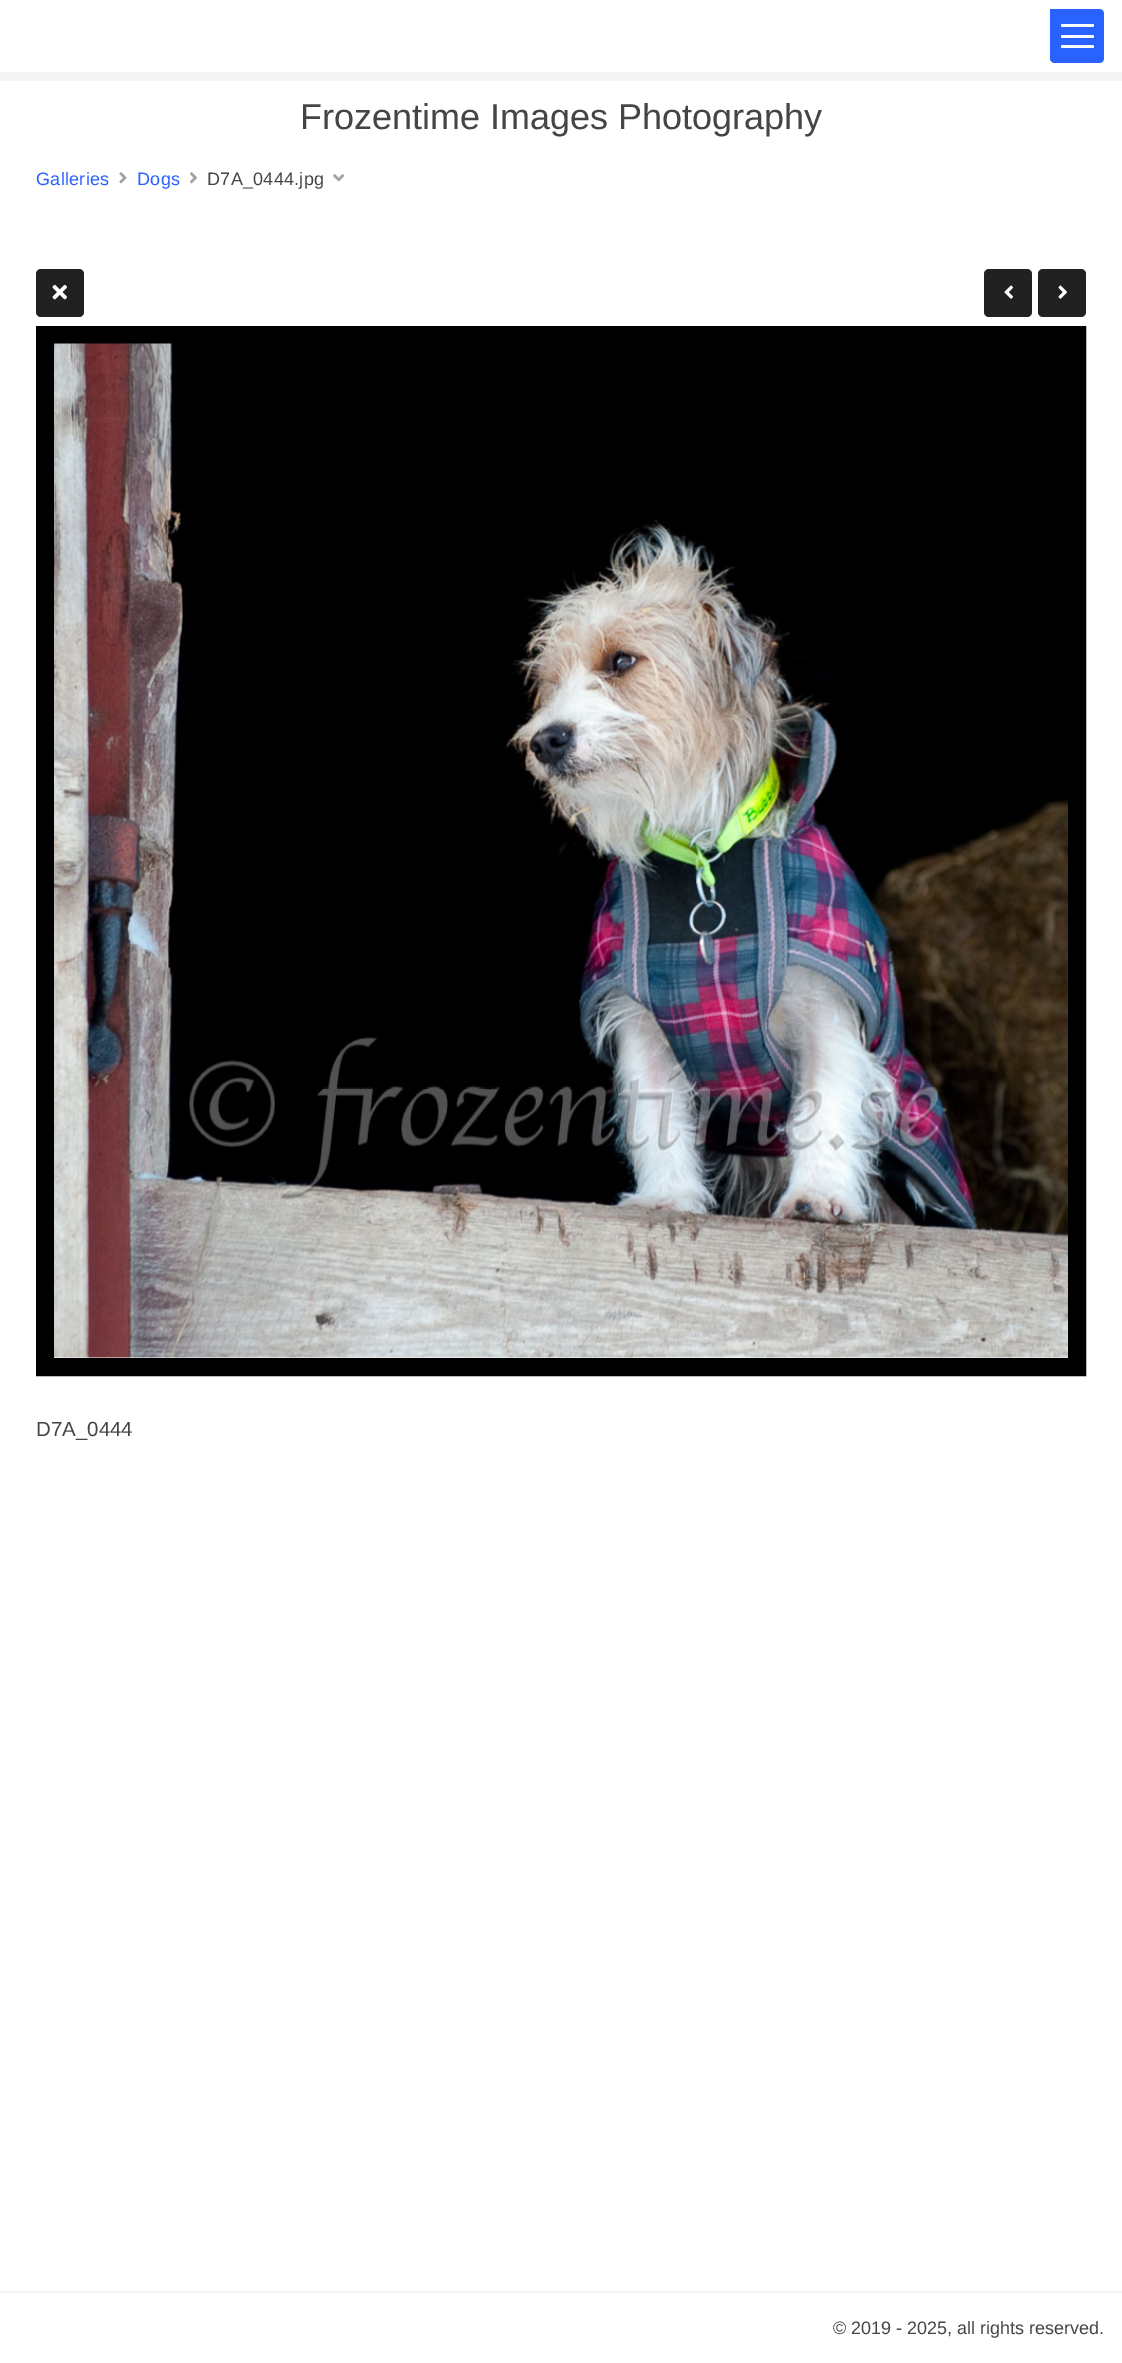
%!PS-Adobe-3.0
%%BoundingBox: 0 0 1122 2363
%%LanguageLevel: 3
%%Pages: 1
%%EndComments
%%BeginProlog
/m { moveto } bind def
/l { lineto } bind def
/c { curveto } bind def
/h { closepath } bind def
/f { fill } bind def
/w { setlinewidth } bind def
/fn { [ exch dup neg 0 0 3 -1 roll 0 0 ] selectfont } def
/tx { moveto show } def
/bx { rectfill } def
/rr { 5 dict begin { /r /h /w /y /x } { exch def } forall
  x r add y moveto x w add y 2 copy h add r arct x w add y h add x 1 index r arct
  x y h add x y r arct x y 2 copy exch w add exch r arct closepath end } def
/im { 5 dict begin { /h /w /y /x /name } { exch def } forall
  gsave x y translate w h scale
  w h 8 [w 0 0 h 0 0] name (r) file false 3 colorimage grestore end } def
%%EndProlog
%%BeginSetup
<< /PageSize [1122 2363] >> setpagedevice
%%EndSetup
%%Page: 1 1
0 2363 translate 1 -1 scale
4 setmiterlimit
1 setgray
0 0 1122 2363 bx
0.161 0.384 1 setrgbcolor
1050 9 m 1099 9 l 1102 9 1104 11 1104 14 c 1104 58 l 1104 61 1102 63 1099 63 c 1055 63 l 1052 63 1050 61 1050 58 c h f
1 setgray
1061 24 33 3 1.5 rr f
1061 35 33 3 1.5 rr f
1061 45 33 3 1.5 rr f
0.961 setgray
0 72 1122 9 bx
/LiberationSans-Regular 36 fn
0.271 setgray
(Frozentime Images Photography) 300 129 tx
/LiberationSans-Regular 18 fn
0.161 0.384 1 setrgbcolor
36 185 m 0.25 0 (Galleries) ashow
(image0.raw) 119 172 8 12 im
137 185 m 0.25 0 (Dogs) ashow
(image1.raw) 190 172 7 12 im
0.271 setgray
207 185 m 0.25 0 (D7A_0444.jpg) ashow
(image2.raw) 333 174 12 8 im
0.129 setgray
36 269 48 48 5 rr f
(image3.raw) 52 284 15 16 im
984 269 48 48 5 rr f
(image4.raw) 1004 285 9 14 im
1038 269 48 48 5 rr f
(image5.raw) 1058 285 9 14 im
0 setgray
18 w
45 335 1032 1032 rectstroke
(image6.raw) 54 343 1014 1015 im
/LiberationSans-Regular 20.5 fn
0.271 setgray
(D7A_0444) 36 1436 tx
0.961 setgray
0 2291 1122 2 bx
/LiberationSans-Regular 18 fn
0.271 setgray
(© 2019 - 2025, all rights reserved.) 833 2334 tx
showpage
%%EOF
